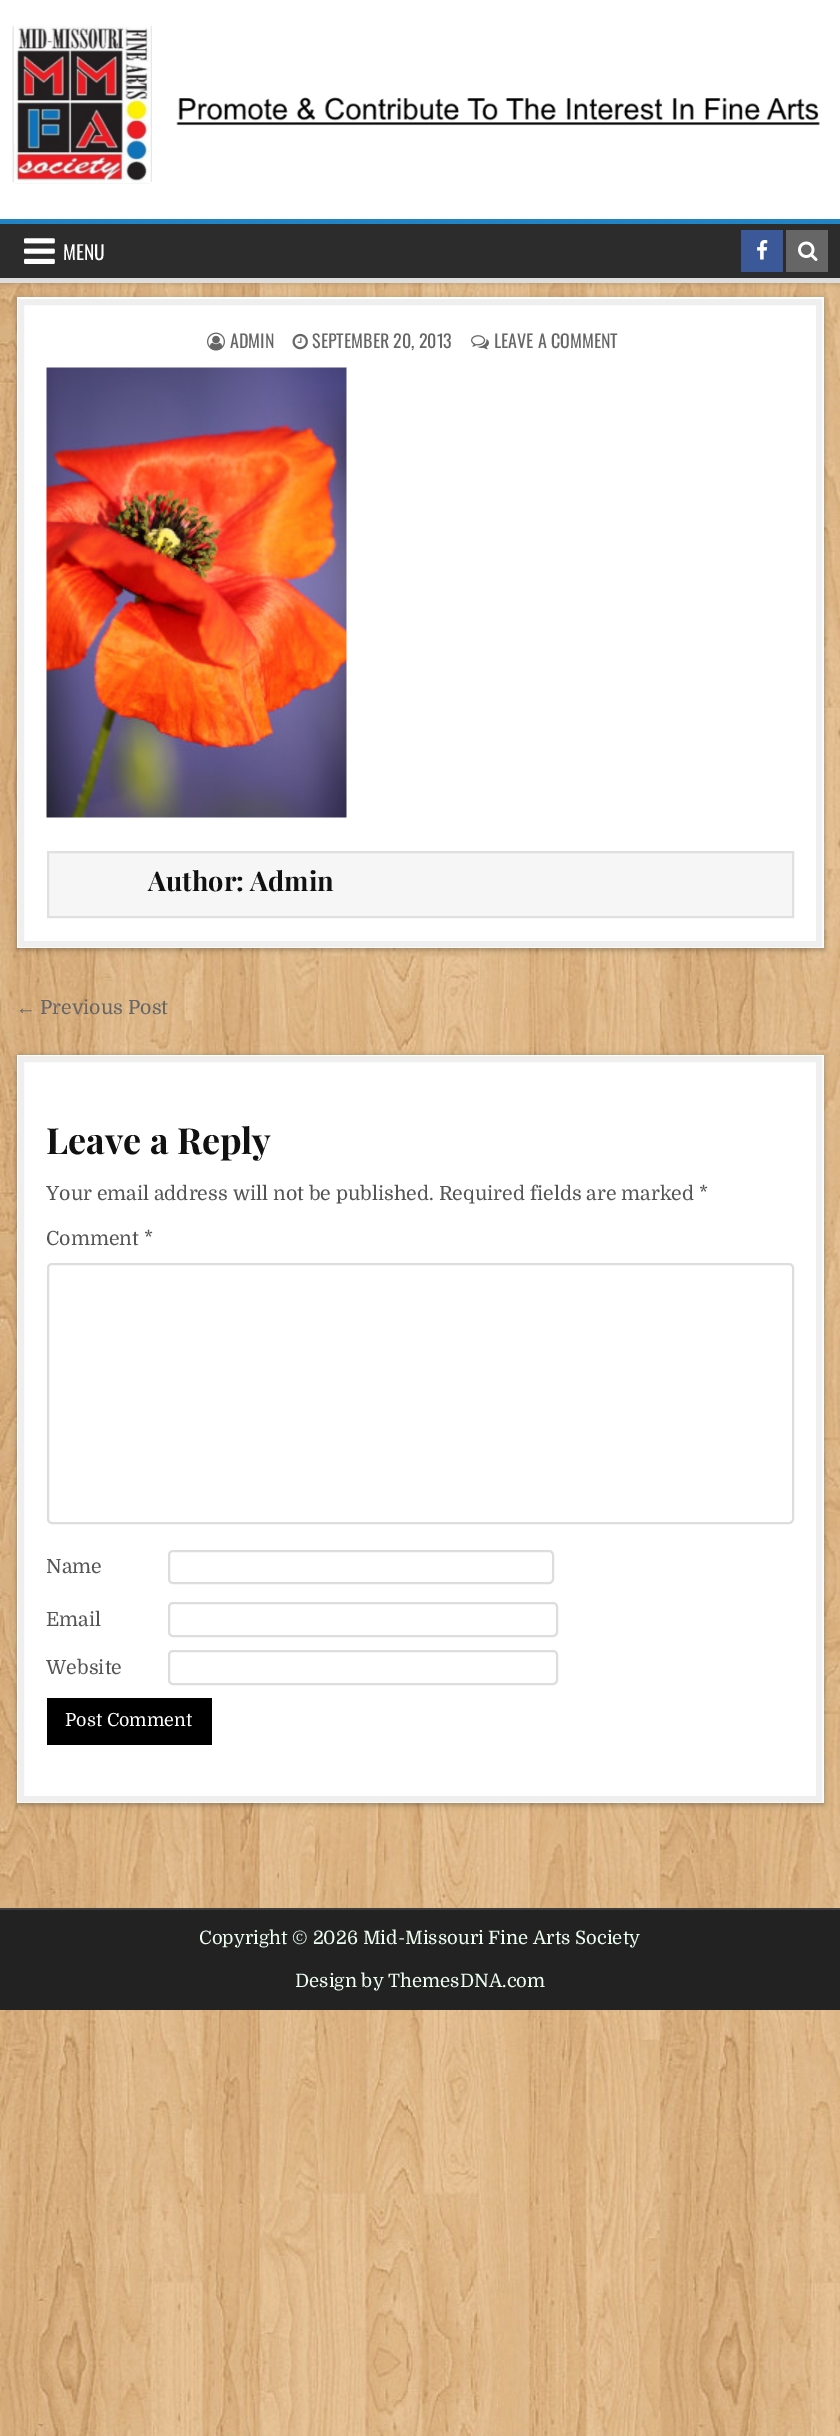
%!PS-Adobe-3.0
%%BoundingBox: 0 0 840 2436
%%LanguageLevel: 3
%%Pages: 1
%%EndComments
%%BeginProlog
/m { moveto } bind def
/l { lineto } bind def
/h { closepath } bind def
/f { fill } bind def
/S { stroke } bind def
/q { gsave } bind def
/Q { grestore } bind def
/w { setlinewidth } bind def
/fn { [ exch dup neg 0 0 3 -1 roll 0 0 ] selectfont } def
/tx { moveto show } def
/bx { rectfill } def
/al { dup .setfillconstantalpha .setstrokeconstantalpha } def
/rr { 5 dict begin { /r /h /w /y /x } { exch def } forall
  x r add y moveto x w add y 2 copy h add r arct x w add y h add x 1 index r arct
  x y h add x y r arct x y 2 copy exch w add exch r arct closepath end } def
/sh { 12 dict begin { /a /b /q /h /w /y /x } { exch def } forall gsave /was 0 def
  9 -2 -9 { dup b mul 4 div /e exch def 1 sub .425 mul 2.718 exch exp 1 add a .99 .min exch div /now exch def
    1 1 now sub 1 was sub div sub al /was now def
    w h .min e 2 mul add 0 gt { x e sub y e sub w e 2 mul add h e 2 mul add
      q e add b .6 mul add w h .min 2 div e add .min 0 .max rr fill } if } for grestore end } def
/im { 5 dict begin { /h /w /y /x /name } { exch def } forall
  gsave x y translate w h scale
  w h 8 [w 0 0 h 0 0] name (r) file false 3 colorimage grestore end } def
%%EndProlog
%%BeginSetup
<< /PageSize [840 2436] /PageUsesTransparency true >> setpagedevice
%%EndSetup
%%Page: 1 1
0 .pushpdf14devicefilter
0 2436 translate 1 -1 scale
4 setmiterlimit
1 setgray
0 0 840 2436 bx
(image0.raw) 0 283 840 2153 im
0 setgray
0 221 840 63 0 2 0.15 sh
1 setgray
1 218 838 1 bx
(image1.raw) 12 26 808 158 im
0.173 setgray
0 224 840 54 bx
0.129 0.522 0.773 setrgbcolor
0 219 840 5 bx
0.867 setgray
0 278 840 5 bx
(image2.raw) 24 238 31 26 im
/Oswald-Regular 19.5 fn
1 setgray
(MENU) 63 260 tx
0.231 0.349 0.596 setrgbcolor
741 230 42 42 bx
(image3.raw) 757 240 11 20 im
0.4 setgray
786 230 42 42 bx
(image4.raw) 798 241 20 20 im
0 setgray
17 299 807 651 0 3 0.3 sh
1 setgray
17 297 807 651 bx
0.937 setgray
6 w
21 302 798 642 rectstroke
(image5.raw) 207 332 18 19 im
/Oswald-Regular 18 fn
0.4 setgray
(ADMIN) 230 348 tx
(image6.raw) 292 333 16 17 im
(SEPTEMBER 20, 2013) 312 348 tx
(image7.raw) 471 335 18 15 im
(LEAVE A COMMENT) 494 348 tx
(image8.raw) 46 367 301 451 im
0.965 setgray
48 852 m 793 852 l 793 917 l 48 917 l h q f Q
0.878 setgray
2 w
S
/PlayfairDisplay-Bold 27 fn
0.067 setgray
(Author: Admin) 148 891 tx
/LiberationSans-Regular 19.5 fn
0.4 setgray
(←) 16 1014 tx
/Domine-Regular 19.5 fn
(Previous Post) 40 1014 tx
0 setgray
17 1056 807 749 0 3 0.3 sh
1 setgray
17 1055 807 748 bx
0.937 setgray
6 w
21 1059 798 740 rectstroke
/PlayfairDisplay-Bold 36 fn
0.067 setgray
(Leave a Reply) 46 1154 tx
/Domine-Regular 19.5 fn
0.333 setgray
(Your email address will not be published. Required fields are marked *) 46 1200 tx
(Comment *) 46 1245 tx
0.867 setgray
2 w
48 1264 745 259 4 rr S
0.333 setgray
(Name) 46 1573 tx
0.867 setgray
169 1551 384 32 4 rr S
0.333 setgray
(Email) 46 1626 tx
0.867 setgray
169 1603 388 33 4 rr S
0.333 setgray
(Website) 46 1674 tx
0.867 setgray
169 1651 388 33 4 rr S
0 setgray
47 1698 165 47 bx
/Domine-Regular 18 fn
1 setgray
(Post Comment) 65 1726 tx
0.133 setgray
0 1910 840 100 bx
0.239 setgray
0 1908 840 2 bx
/Domine-Regular 18.5 fn
0.925 1 0.945 setrgbcolor
(Copyright © 2026 Mid-Missouri Fine Arts Society) 199 1944 tx
(Design by ThemesDNA.com) 295 1987 tx
.poppdf14devicefilter showpage
%%EOF
